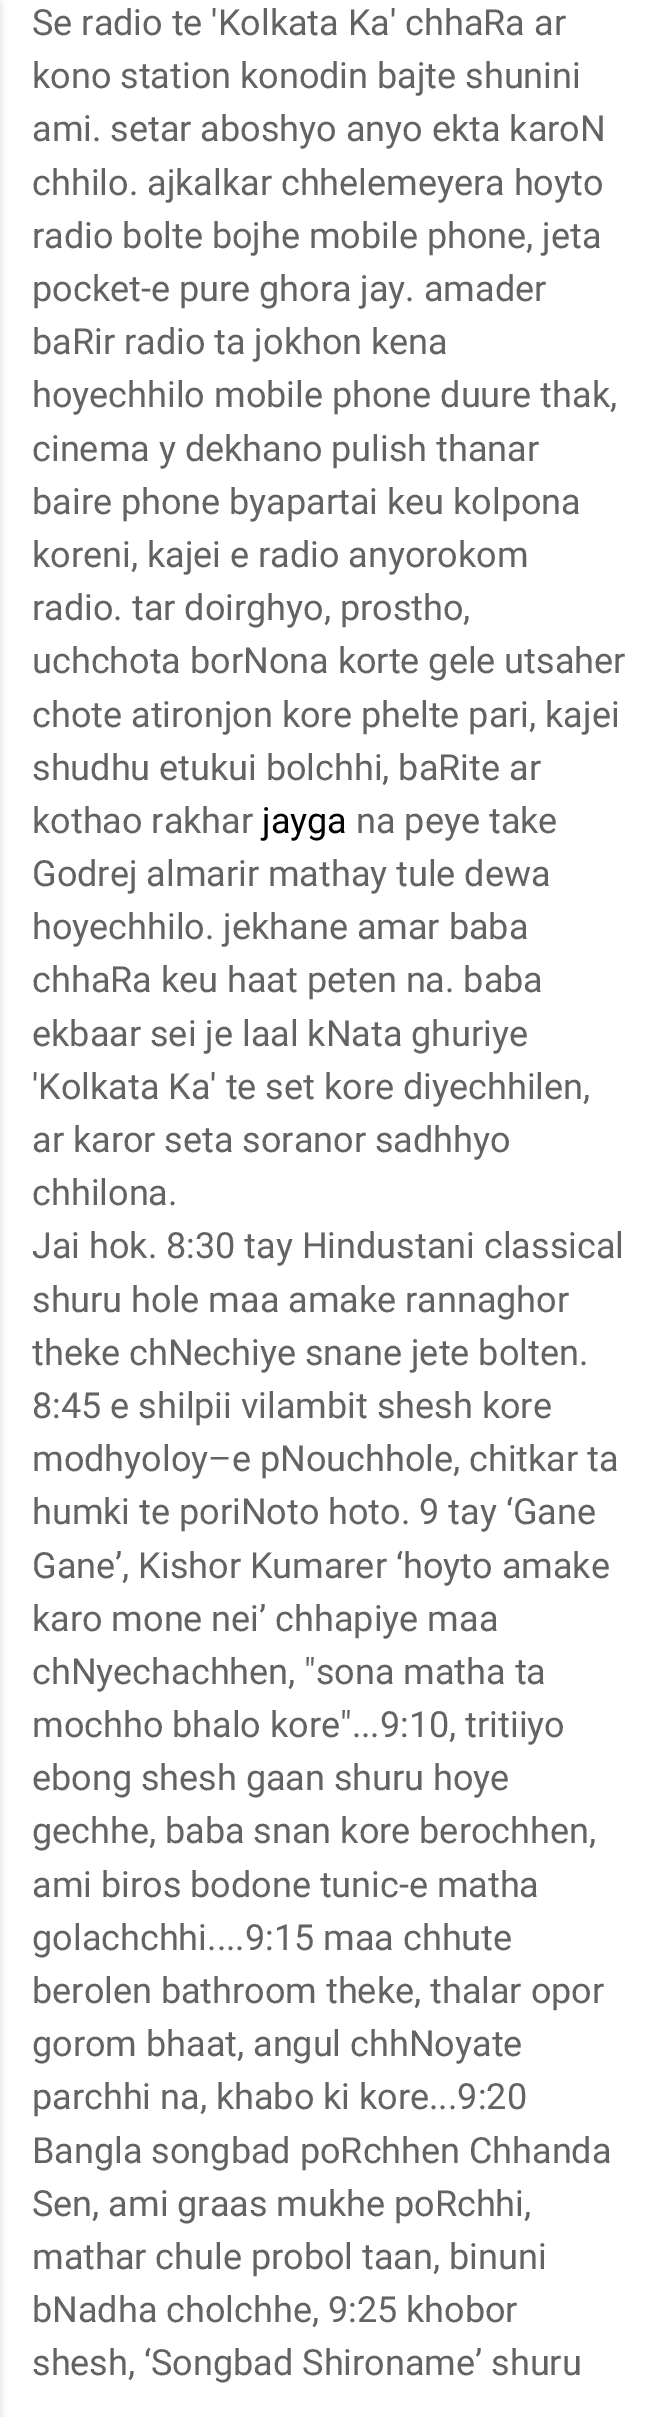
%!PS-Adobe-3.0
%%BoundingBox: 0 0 657 2417
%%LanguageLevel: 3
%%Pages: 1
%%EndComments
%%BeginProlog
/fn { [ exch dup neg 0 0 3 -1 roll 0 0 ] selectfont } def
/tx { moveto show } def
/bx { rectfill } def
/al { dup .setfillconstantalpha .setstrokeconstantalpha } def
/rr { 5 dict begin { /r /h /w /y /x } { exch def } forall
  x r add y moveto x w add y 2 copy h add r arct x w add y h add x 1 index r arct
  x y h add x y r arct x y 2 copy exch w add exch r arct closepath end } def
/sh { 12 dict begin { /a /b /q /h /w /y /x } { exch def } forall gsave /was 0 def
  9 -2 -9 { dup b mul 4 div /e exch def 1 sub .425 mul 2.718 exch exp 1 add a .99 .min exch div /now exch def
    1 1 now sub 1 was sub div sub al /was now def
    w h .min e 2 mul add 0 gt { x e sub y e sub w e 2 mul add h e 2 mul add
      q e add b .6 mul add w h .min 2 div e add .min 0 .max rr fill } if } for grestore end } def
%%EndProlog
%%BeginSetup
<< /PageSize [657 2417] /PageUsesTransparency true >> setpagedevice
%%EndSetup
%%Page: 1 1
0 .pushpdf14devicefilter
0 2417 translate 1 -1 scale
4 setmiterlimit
1 setgray
0 0 657 2417 bx
0 setgray
-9 2 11 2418 0 3 0.1 sh
/Roboto-Regular 36 fn
0.388 setgray
(Se radio te 'Kolkata Ka' chhaRa ar) 32 35 tx
(kono station konodin bajte shunini) 32 88 tx
(ami. setar aboshyo anyo ekta karoN) 32 141 tx
(chhilo. ajkalkar chhelemeyera hoyto) 32 195 tx
(radio bolte bojhe mobile phone, jeta) 32 248 tx
(pocket-e pure ghora jay. amader) 32 301 tx
(baRir radio ta jokhon kena) 32 354 tx
(hoyechhilo mobile phone duure thak,) 32 407 tx
(cinema y dekhano pulish thanar) 32 461 tx
(baire phone byapartai keu kolpona) 32 514 tx
(koreni, kajei e radio anyorokom) 32 567 tx
(radio. tar doirghyo, prostho,) 32 620 tx
(uchchota borNona korte gele utsaher) 32 673 tx
(chote atironjon kore phelte pari, kajei) 32 727 tx
(shudhu etukui bolchhi, baRite ar) 32 780 tx
(kothao rakhar) 32 833 tx
0 setgray
(jayga) 262 833 tx
0.388 setgray
(na peye take) 356 833 tx
(Godrej almarir mathay tule dewa) 32 886 tx
(hoyechhilo. jekhane amar baba) 32 939 tx
(chhaRa keu haat peten na. baba) 32 992 tx
(ekbaar sei je laal kNata ghuriye) 32 1046 tx
('Kolkata Ka' te set kore diyechhilen,) 32 1099 tx
(ar karor seta soranor sadhhyo) 32 1152 tx
(chhilona.) 32 1205 tx
(Jai hok. 8:30 tay Hindustani classical) 32 1258 tx
(shuru hole maa amake rannaghor) 32 1312 tx
(theke chNechiye snane jete bolten.) 32 1365 tx
(8:45 e shilpii vilambit shesh kore) 32 1418 tx
(modhyoloy–e pNouchhole, chitkar ta) 32 1471 tx
(humki te poriNoto hoto. 9 tay ‘Gane) 32 1524 tx
(Gane’, Kishor Kumarer ‘hoyto amake) 32 1578 tx
(karo mone nei’ chhapiye maa) 32 1631 tx
(chNyechachhen, "sona matha ta) 32 1684 tx
(mochho bhalo kore"...9:10, tritiiyo) 32 1737 tx
(ebong shesh gaan shuru hoye) 32 1790 tx
(gechhe, baba snan kore berochhen,) 32 1843 tx
(ami biros bodone tunic-e matha) 32 1897 tx
(golachchhi....9:15 maa chhute) 32 1950 tx
(berolen bathroom theke, thalar opor) 32 2003 tx
(gorom bhaat, angul chhNoyate) 32 2056 tx
(parchhi na, khabo ki kore...9:20) 32 2109 tx
(Bangla songbad poRchhen Chhanda) 32 2163 tx
(Sen, ami graas mukhe poRchhi,) 32 2216 tx
(mathar chule probol taan, binuni) 32 2269 tx
(bNadha cholchhe, 9:25 khobor) 32 2322 tx
(shesh, ‘Songbad Shironame’ shuru) 32 2375 tx
.poppdf14devicefilter showpage
%%EOF
